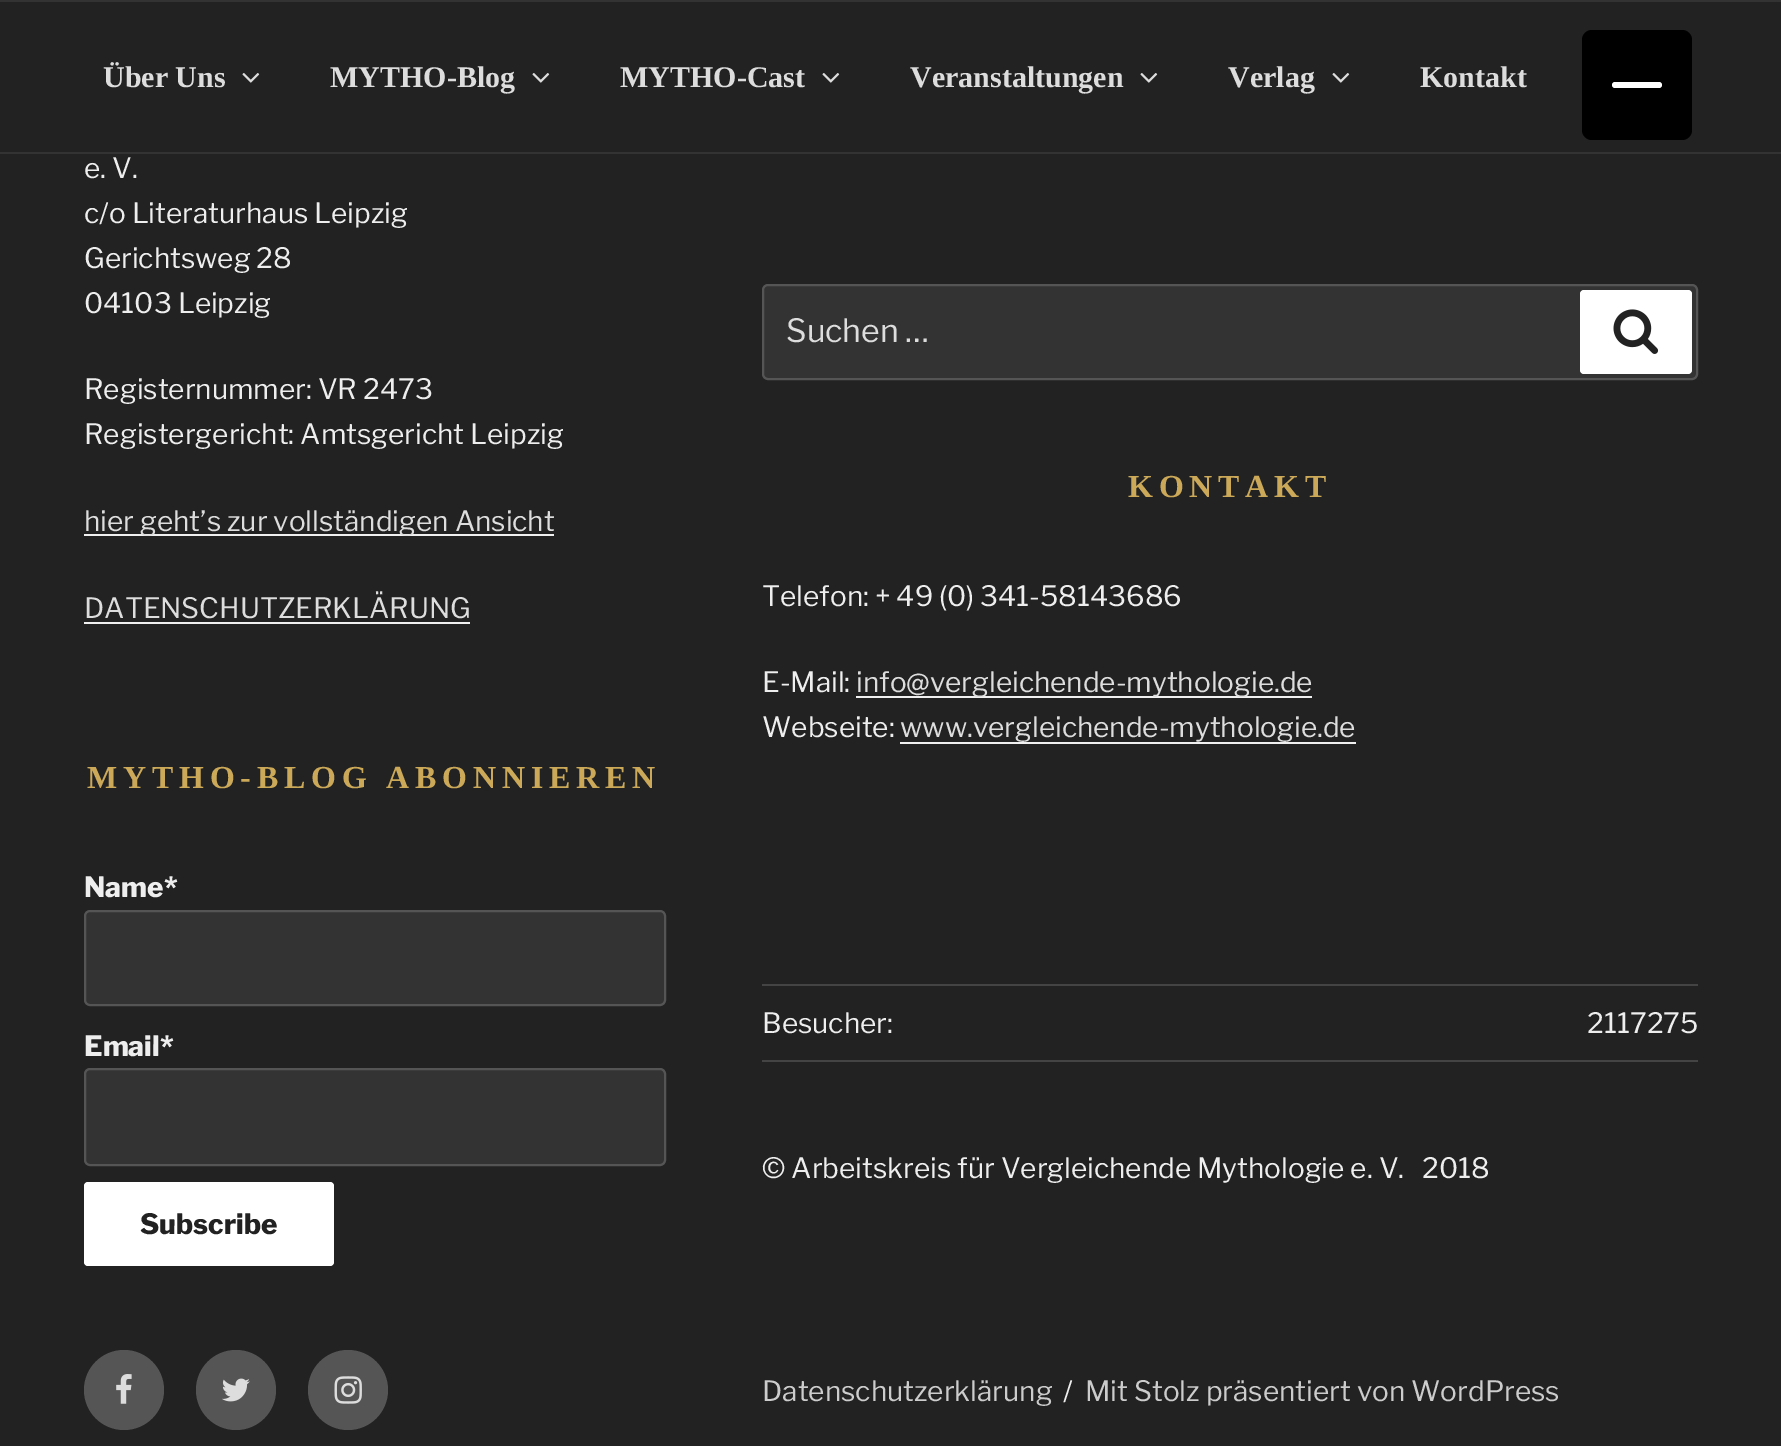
%!PS-Adobe-3.0
%%BoundingBox: 0 0 1781 1446
%%LanguageLevel: 3
%%Pages: 1
%%EndComments
%%BeginProlog
/m { moveto } bind def
/f { fill } bind def
/S { stroke } bind def
/q { gsave } bind def
/Q { grestore } bind def
/w { setlinewidth } bind def
/fn { [ exch dup neg 0 0 3 -1 roll 0 0 ] selectfont } def
/tx { moveto show } def
/bx { rectfill } def
/ci { newpath 0 360 arc closepath } def
/rr { 5 dict begin { /r /h /w /y /x } { exch def } forall
  x r add y moveto x w add y 2 copy h add r arct x w add y h add x 1 index r arct
  x y h add x y r arct x y 2 copy exch w add exch r arct closepath end } def
/im { 5 dict begin { /h /w /y /x /name } { exch def } forall
  gsave x y translate w h scale
  w h 8 [w 0 0 h 0 0] name (r) file false 3 colorimage grestore end } def
%%EndProlog
%%BeginSetup
<< /PageSize [1781 1446] >> setpagedevice
%%EndSetup
%%Page: 1 1
0 1446 translate 1 -1 scale
4 setmiterlimit
0.133 setgray
0 0 1781 1446 bx
0 setgray
1582 30 110 110 10 rr f
1 setgray
1612 82 50 6 3 rr f
0.2 setgray
0 0 1781 2 bx
0 152 1781 2 bx
/LiberationSerif-Bold 30 fn
0.867 setgray
(Über Uns) 103 87 tx
(image0.raw) 242 73 18 10 im
(MYTHO-Blog) 330 87 tx
(image0.raw) 532 73 18 10 im
(MYTHO-Cast) 620 87 tx
(image0.raw) 822 73 18 10 im
(Veranstaltungen) 910 87 tx
(image0.raw) 1140 73 18 10 im
(Verlag) 1228 87 tx
(image0.raw) 1332 73 18 10 im
(Kontakt) 1420 87 tx
/LibreFranklin-Thin 28 fn
0.933 setgray
(e. V.) 84 178 tx
(c/o Literaturhaus Leipzig) 84 223 tx
(Gerichtsweg 28) 84 268 tx
(04103 Leipzig) 84 313 tx
(Registernummer: VR 2473) 84 399 tx
(Registergericht: Amtsgericht Leipzig) 84 444 tx
0.941 setgray
84 534 470 2 bx
0.867 setgray
(hier geht’s zur vollständigen Ansicht) 84 531 tx
(DATENSCHUTZERKLÄRUNG) 84 618 tx
0.941 setgray
84 622 386 2 bx
/LiberationSerif-Bold 32 fn
0.8 0.663 0.349 setrgbcolor
87 788 m 5.8 0 (MYTHO-BLOG ABONNIEREN) ashow
/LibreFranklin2-Thin 28 fn
0.933 setgray
(Name*) 84 897 tx
0.2 setgray
85 911 580 94 5 rr q f Q
0.333 setgray
2 w
S
0.933 setgray
(Email*) 84 1056 tx
0.2 setgray
85 1069 580 96 5 rr q f Q
0.333 setgray
S
1 setgray
84 1182 250 84 4 rr f
0.133 setgray
(Subscribe) 140 1234 tx
0.2 setgray
763 285 934 94 5 rr q f Q
0.333 setgray
S
/LibreFranklin-Thin 32 fn
0.867 setgray
(Suchen …) 786 342 tx
1 setgray
1580 290 112 84 4 rr f
(image1.raw) 1613 309 46 45 im
/LiberationSerif-Bold 32 fn
0.8 0.663 0.349 setrgbcolor
1128 497 m 5.8 0 (KONTAKT) ashow
/LibreFranklin-Thin 28 fn
0.933 setgray
(Telefon: + 49 \(0\) 341-58143686) 762 606 tx
(E-Mail:) 762 692 tx
0.941 setgray
856 696 456 2 bx
0.867 setgray
(info@vergleichende-mythologie.de) 856 692 tx
0.933 setgray
(Webseite:) 762 737 tx
0.867 setgray
(www.vergleichende-mythologie.de) 900 737 tx
0.941 setgray
900 742 456 2 bx
0.267 setgray
762 984 936 2 bx
762 1060 936 2 bx
0.933 setgray
(Besucher:) 762 1033 tx
(2117275) 1587 1033 tx
(© Arbeitskreis für Vergleichende Mythologie e. V.   2018) 762 1178 tx
0.333 setgray
124 1390 40 ci f
(image2.raw) 116 1374 16 30 im
236 1390 40 ci f
(image3.raw) 222 1378 28 24 im
348 1390 40 ci f
(image4.raw) 334 1376 28 28 im
0.8 setgray
(Datenschutzerklärung) 762 1401 tx
0.933 setgray
(/) 1063 1401 tx
0.8 setgray
(Mit Stolz präsentiert von WordPress) 1085 1401 tx
showpage
%%EOF
